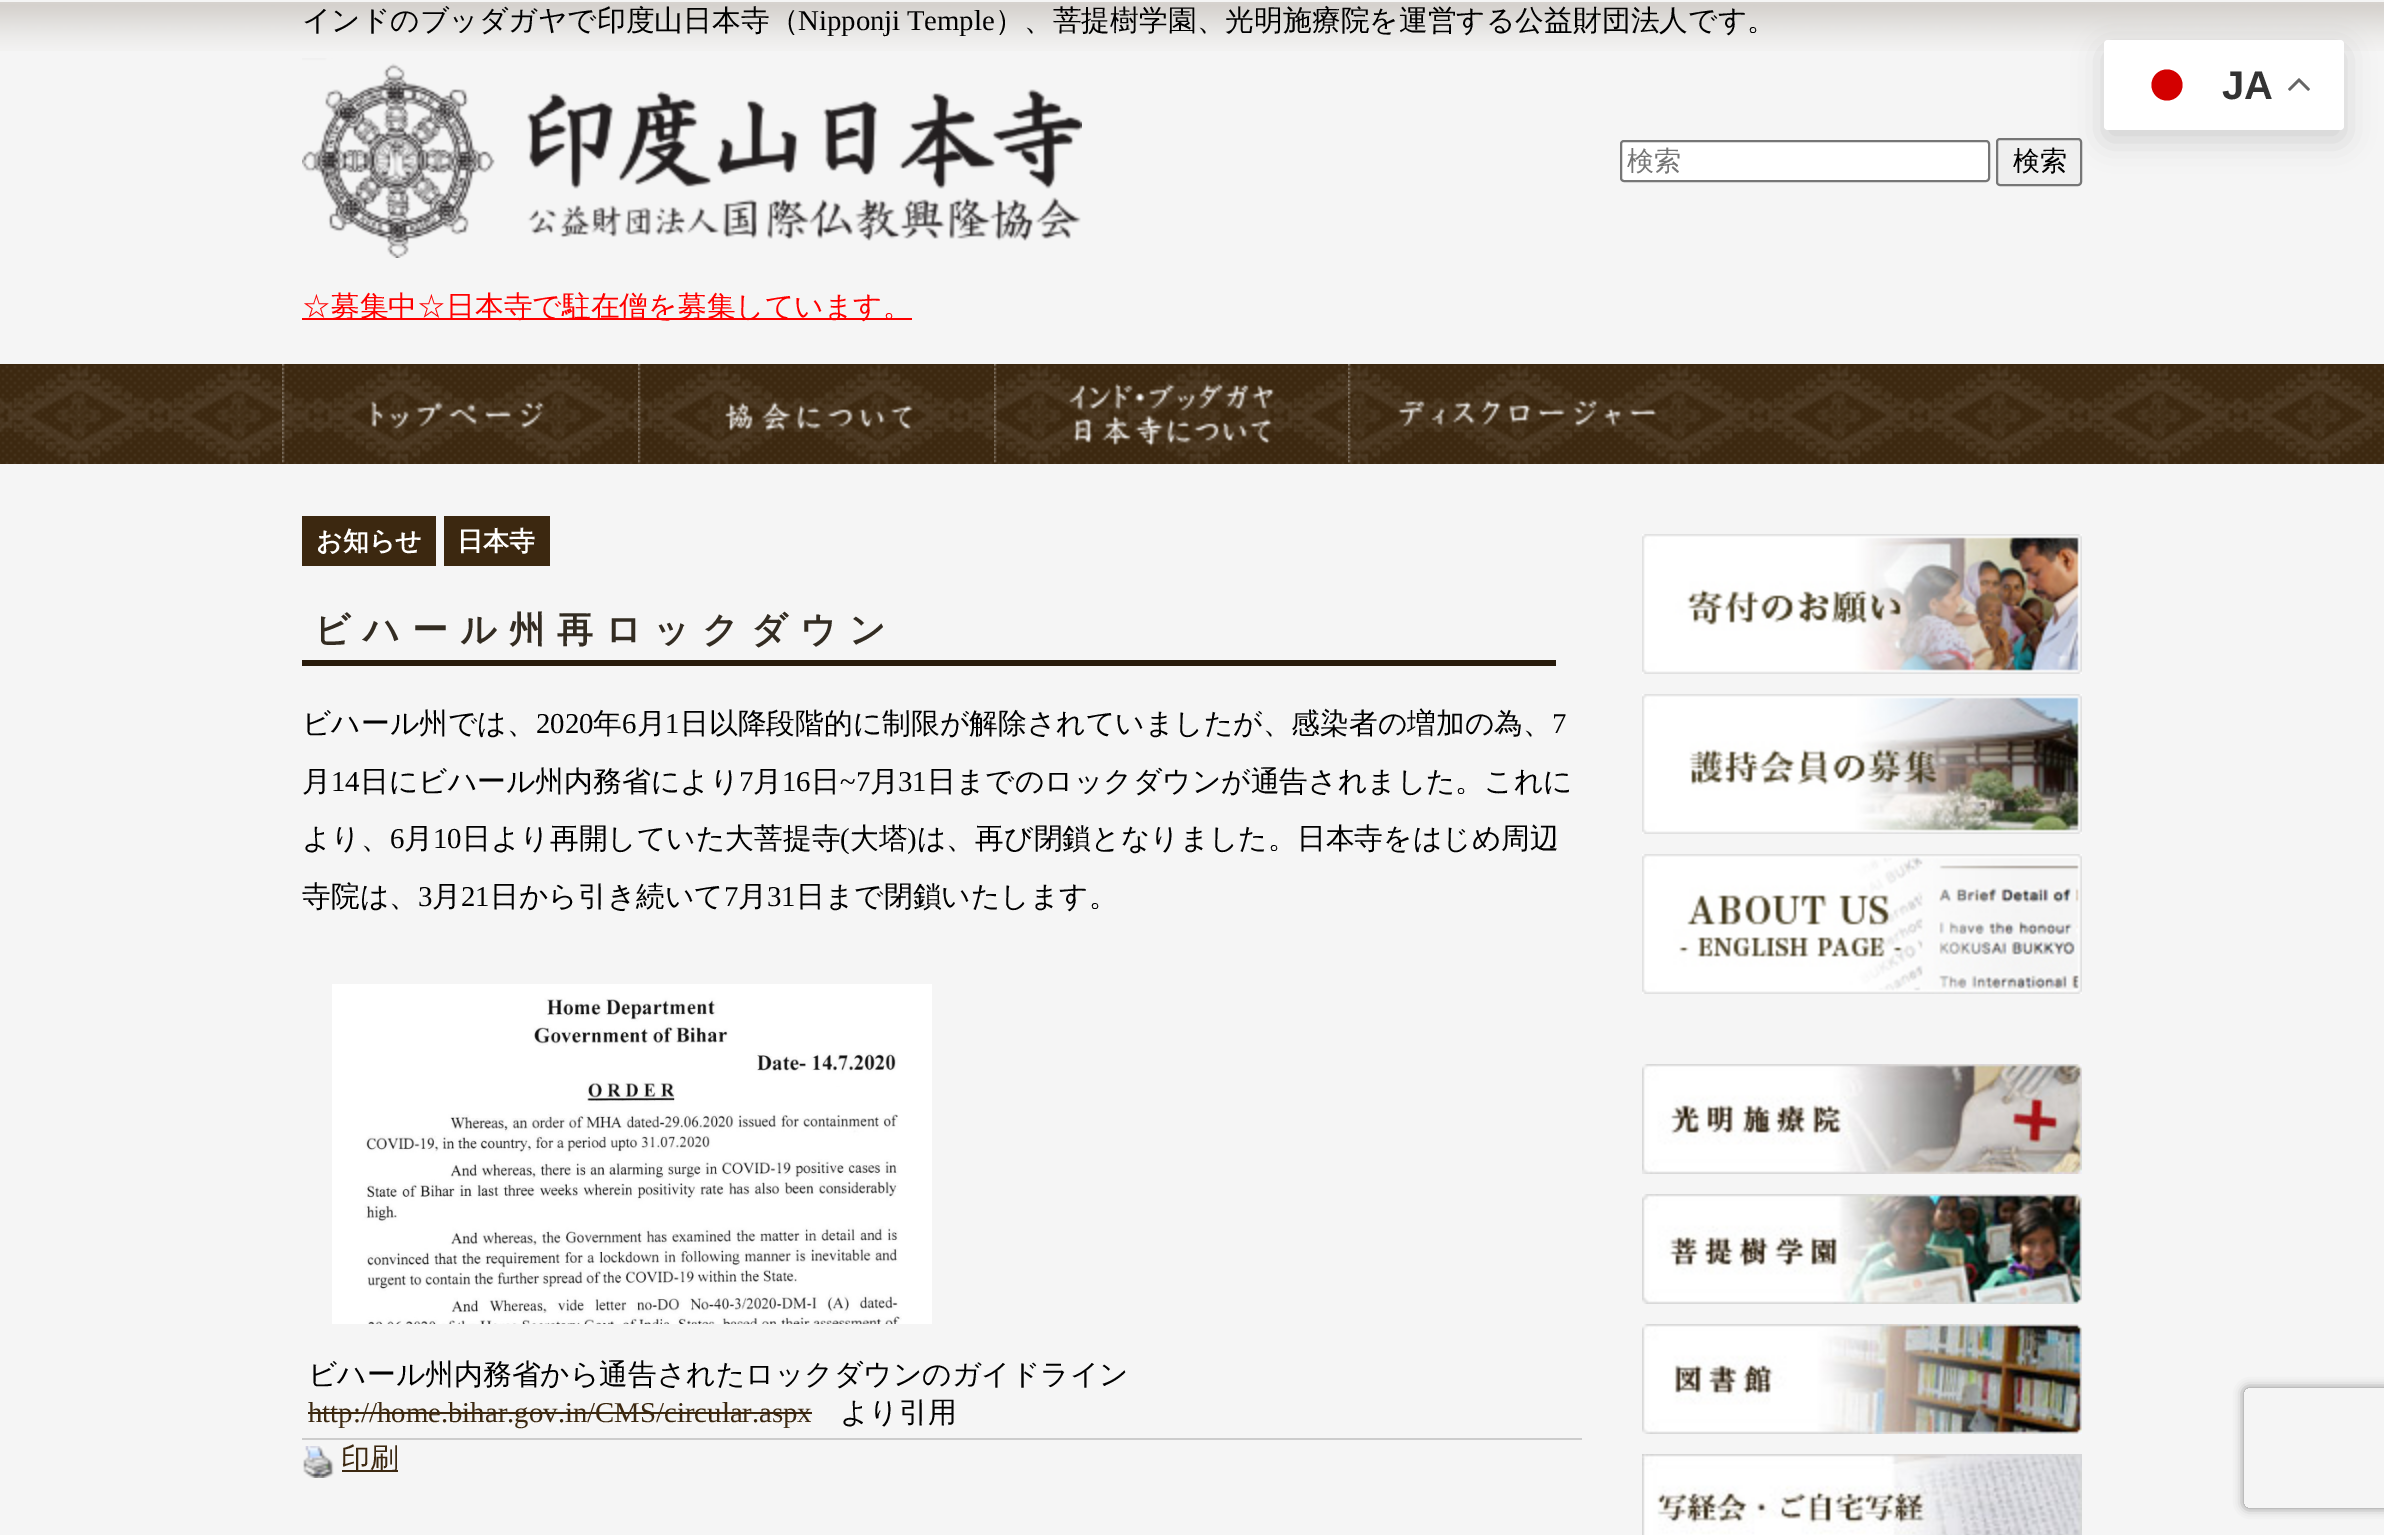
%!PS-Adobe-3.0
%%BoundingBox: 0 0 2384 1535
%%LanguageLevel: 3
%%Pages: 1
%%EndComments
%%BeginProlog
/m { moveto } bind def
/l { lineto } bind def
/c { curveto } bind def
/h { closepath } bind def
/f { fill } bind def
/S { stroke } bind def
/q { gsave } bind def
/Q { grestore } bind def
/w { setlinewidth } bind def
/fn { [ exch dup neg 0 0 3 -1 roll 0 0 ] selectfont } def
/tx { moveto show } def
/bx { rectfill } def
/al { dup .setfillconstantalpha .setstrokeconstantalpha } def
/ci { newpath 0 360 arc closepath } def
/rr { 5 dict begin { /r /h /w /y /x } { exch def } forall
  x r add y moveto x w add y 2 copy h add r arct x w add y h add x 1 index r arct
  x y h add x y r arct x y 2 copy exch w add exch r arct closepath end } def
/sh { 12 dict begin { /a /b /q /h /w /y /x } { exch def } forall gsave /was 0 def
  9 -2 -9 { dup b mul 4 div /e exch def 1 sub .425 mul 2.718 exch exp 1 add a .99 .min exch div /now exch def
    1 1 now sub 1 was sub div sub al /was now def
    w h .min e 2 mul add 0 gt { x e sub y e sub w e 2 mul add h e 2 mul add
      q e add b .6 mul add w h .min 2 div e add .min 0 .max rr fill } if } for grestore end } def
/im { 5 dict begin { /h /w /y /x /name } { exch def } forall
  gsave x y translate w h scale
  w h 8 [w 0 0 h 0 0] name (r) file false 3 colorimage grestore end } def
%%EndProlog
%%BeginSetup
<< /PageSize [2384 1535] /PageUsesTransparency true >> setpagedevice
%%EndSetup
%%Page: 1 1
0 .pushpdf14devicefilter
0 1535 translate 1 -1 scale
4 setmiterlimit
0.961 setgray
0 0 2384 1535 bx
(image0.raw) 0 2 2384 49 im
/WenQuanYiZenHei-Medium 28.8 fn
0 setgray
(インドのブッダガヤで印度山日本寺（) 302 30 tx
/LiberationSerif-Regular 28.8 fn
798 30 m -1 0 32 (Nipponji Temple) widthshow
/WenQuanYiZenHei-Medium 28.8 fn
(）、菩提樹学園、光明施療院を運営する公益財団法人です。) 995 30 tx
(image1.raw) 302 58 780 200 im
1 setgray
1621 141 368 40 3 rr q f Q
0.463 setgray
2 w
S
/WenQuanYiZenHei-Medium 27 fn
0.459 setgray
(検索) 1627 170 tx
0.937 setgray
1997 139 84 46 3 rr q f Q
0.463 setgray
S
0 setgray
(検索) 2013 170 tx
1 0 0 setrgbcolor
302 318 610 2 bx
/WenQuanYiZenHei-Medium 28.8 fn
(☆募集中☆日本寺で駐在僧を募集しています。) 302 316 tx
(image2.raw) 0 364 2384 100 im
(image3.raw) 282 364 263 99 im
(image4.raw) 638 364 275 99 im
(image5.raw) 994 364 281 99 im
(image6.raw) 1348 364 309 99 im
0.235 0.157 0.063 setrgbcolor
302 516 134 50 bx
/WenQuanYiZenHei-Bold 26 fn
1 setgray
(お知らせ) 316 550 tx
0.235 0.157 0.063 setrgbcolor
444 516 106 50 bx
1 setgray
(日本寺) 457 550 tx
0.8 setgray
302 1438 1280 2 bx
0.157 0.106 0.043 setrgbcolor
302 660 1254 6 bx
/WenQuanYiZenHei-Bold 36 fn
0.2 0.173 0.133 setrgbcolor
314 642 m 12 0 (ビハール州再ロックダウン) ashow
/WenQuanYiZenHei-Medium 28.8 fn
0 setgray
(ビハール州では、) 302 733 tx
/LiberationSerif-Regular 28.8 fn
(2020) 536 733 tx
/WenQuanYiZenHei-Medium 28.8 fn
(年) 593 733 tx
/LiberationSerif-Regular 28.8 fn
(6) 622 733 tx
/WenQuanYiZenHei-Medium 28.8 fn
(月) 637 733 tx
/LiberationSerif-Regular 28.8 fn
(1) 665 733 tx
/WenQuanYiZenHei-Medium 28.8 fn
(日以降段階的に制限が解除されていましたが、感染者の増加の為、) 680 733 tx
/LiberationSerif-Regular 28.8 fn
(7) 1552 733 tx
/WenQuanYiZenHei-Medium 28.8 fn
(月) 302 791 tx
/LiberationSerif-Regular 28.8 fn
(14) 331 791 tx
/WenQuanYiZenHei-Medium 28.8 fn
(日にビハール州内務省により) 360 791 tx
/LiberationSerif-Regular 28.8 fn
(7) 739 791 tx
/WenQuanYiZenHei-Medium 28.8 fn
(月) 753 791 tx
/LiberationSerif-Regular 28.8 fn
(16) 782 791 tx
/WenQuanYiZenHei-Medium 28.8 fn
(日) 811 791 tx
/LiberationSerif-Regular 28.8 fn
(~7) 840 791 tx
/WenQuanYiZenHei-Medium 28.8 fn
(月) 870 791 tx
/LiberationSerif-Regular 28.8 fn
(31) 898 791 tx
/WenQuanYiZenHei-Medium 28.8 fn
(日までのロックダウンが通告されました。これに) 927 791 tx
(より、) 302 848 tx
/LiberationSerif-Regular 28.8 fn
(6) 390 848 tx
/WenQuanYiZenHei-Medium 28.8 fn
(月) 404 848 tx
/LiberationSerif-Regular 28.8 fn
(10) 433 848 tx
/WenQuanYiZenHei-Medium 28.8 fn
(日より再開していた大菩提寺) 462 848 tx
/LiberationSerif-Regular 28.8 fn
(\() 840 848 tx
/WenQuanYiZenHei-Medium 28.8 fn
(大塔) 850 848 tx
/LiberationSerif-Regular 28.8 fn
(\)) 907 848 tx
/WenQuanYiZenHei-Medium 28.8 fn
(は、再び閉鎖となりました。日本寺をはじめ周辺) 917 848 tx
(寺院は、) 302 906 tx
/LiberationSerif-Regular 28.8 fn
(3) 418 906 tx
/WenQuanYiZenHei-Medium 28.8 fn
(月) 432 906 tx
/LiberationSerif-Regular 28.8 fn
(21) 461 906 tx
/WenQuanYiZenHei-Medium 28.8 fn
(日から引き続いて) 490 906 tx
/LiberationSerif-Regular 28.8 fn
(7) 724 906 tx
/WenQuanYiZenHei-Medium 28.8 fn
(月) 738 906 tx
/LiberationSerif-Regular 28.8 fn
(31) 767 906 tx
/WenQuanYiZenHei-Medium 28.8 fn
(日まで閉鎖いたします。) 796 906 tx
(image7.raw) 332 984 600 340 im
(ビハール州内務省から通告されたロックダウンのガイドライン) 308 1384 tx
/LiberationSerif-Regular 28.8 fn
0.235 0.157 0.063 setrgbcolor
(http://home.bihar.gov.in/CMS/circular.aspx) 308 1422 tx
308 1412 504 2 bx
/WenQuanYiZenHei-Medium 28.8 fn
0 setgray
(より引用) 840 1422 tx
(image8.raw) 303 1446 31 32 im
0.235 0.157 0.063 setrgbcolor
342 1470 56 2 bx
(印刷) 341 1468 tx
(image9.raw) 1642 534 440 140 im
(image10.raw) 1642 694 440 140 im
(image11.raw) 1642 854 440 140 im
(image12.raw) 1642 1064 440 110 im
(image13.raw) 1642 1194 440 110 im
(image14.raw) 1642 1324 440 110 im
(image15.raw) 1642 1454 440 81 im
0 setgray
2104 50 240 90 4 15 0.15 sh
1 setgray
2104 40 240 90 4 rr f
0.827 0 0 setrgbcolor
2167 85 15.5 ci f
/LiberationSans-Bold 40 fn
0.2 setgray
(JA) 2222 99 tx
(image16.raw) 2288 78 22 13 im
q
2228 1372 m 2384 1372 l 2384 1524 l 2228 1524 l h 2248 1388 m 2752 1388 l 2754 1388 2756 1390 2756 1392 c 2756 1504 l 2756 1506 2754 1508 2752 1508 c 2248 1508 l 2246 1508 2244 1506 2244 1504 c 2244 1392 l 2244 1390 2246 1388 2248 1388 c h eoclip newpath
0.502 setgray
2244 1388 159 120 4 5 1 sh
Q
.poppdf14devicefilter showpage
%%EOF
